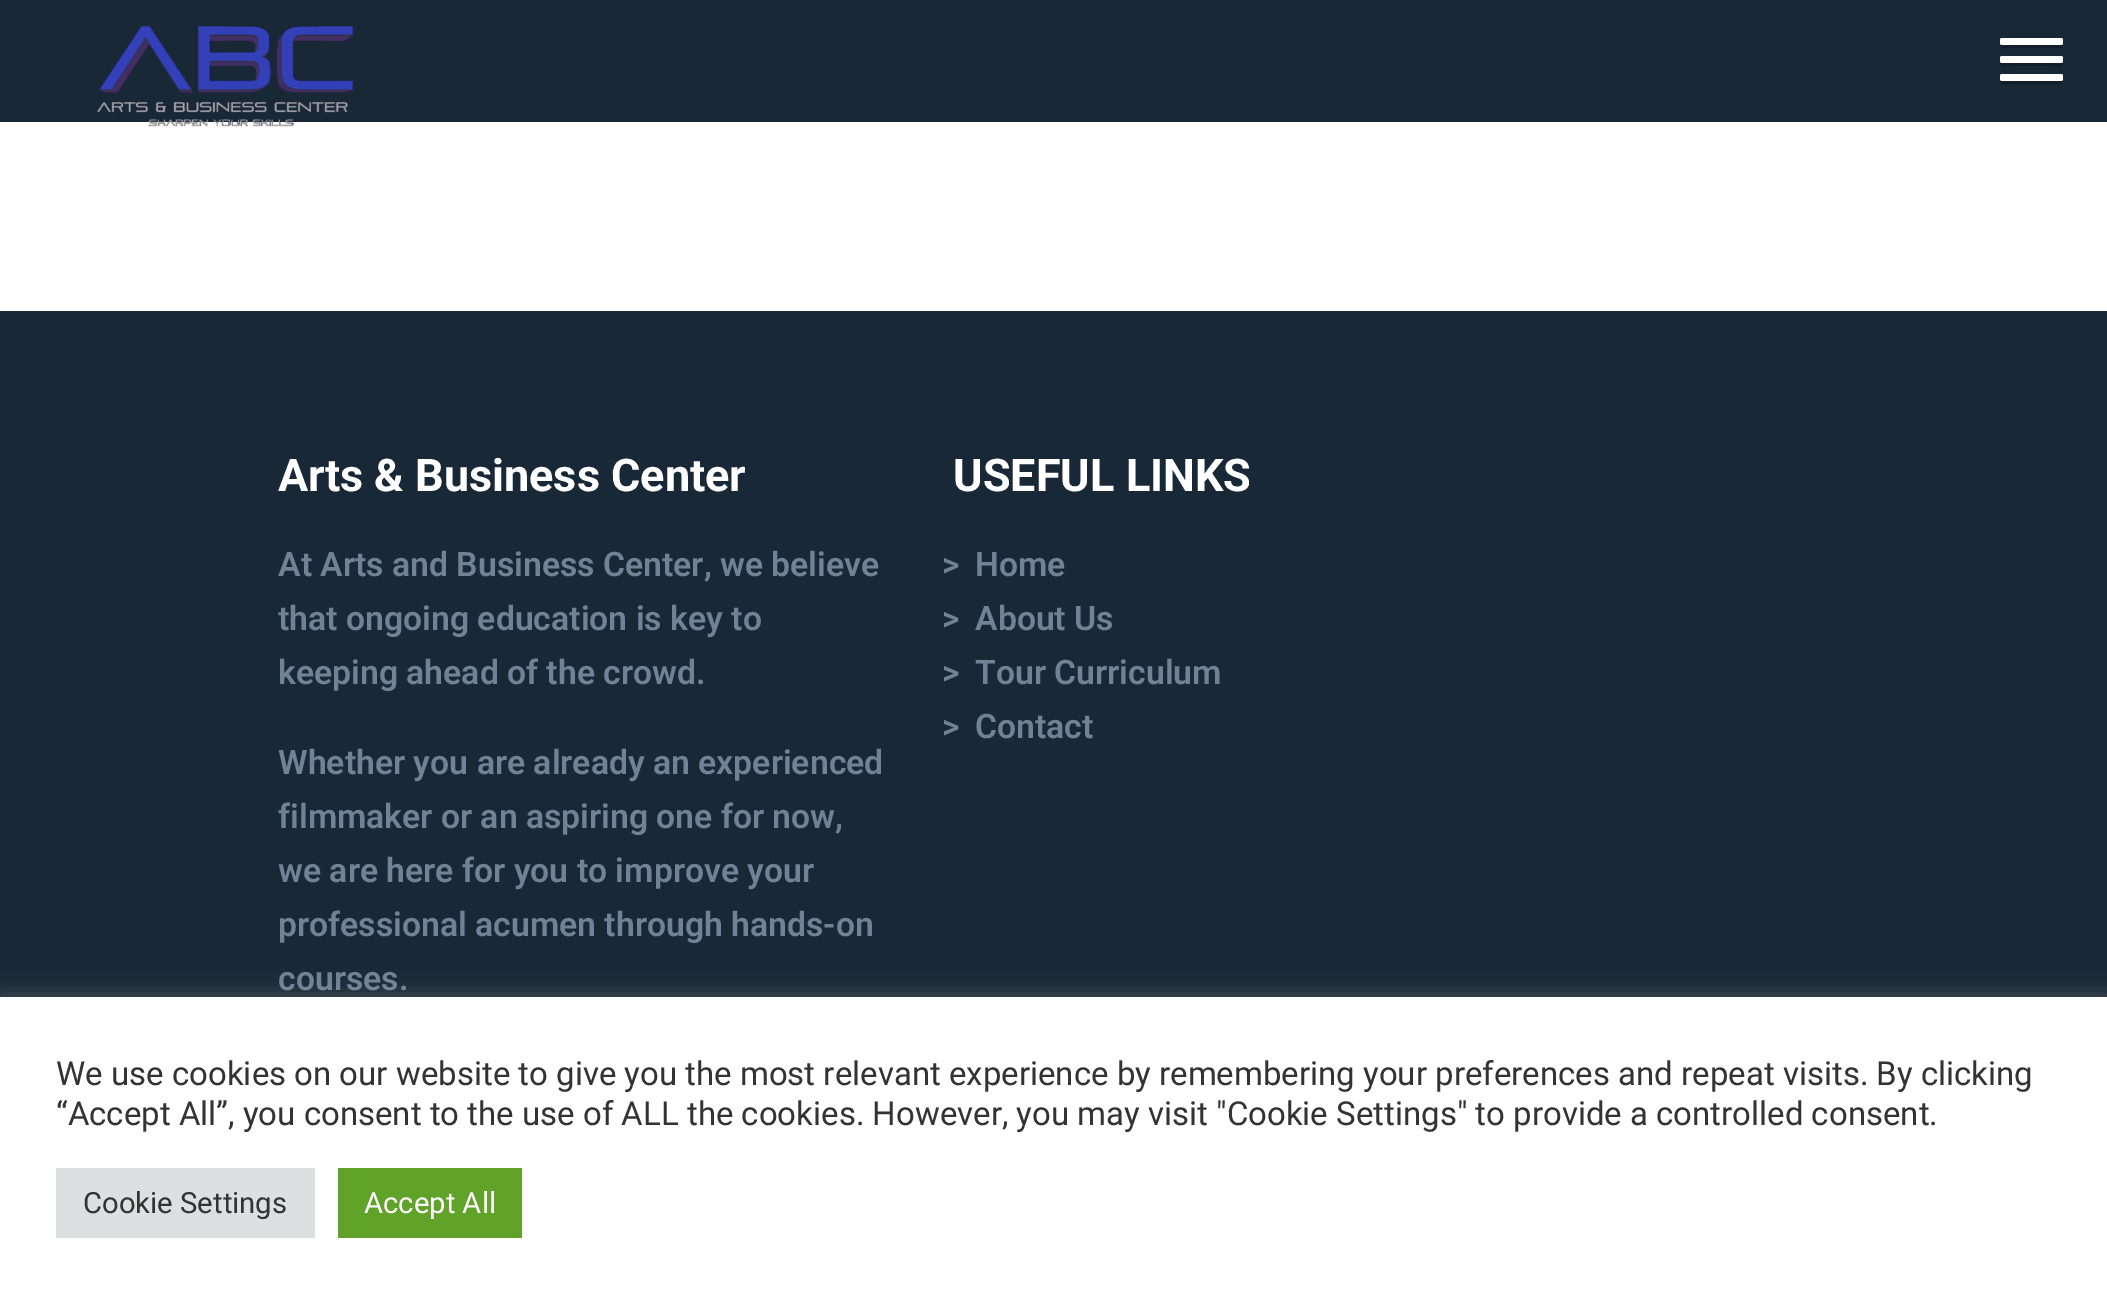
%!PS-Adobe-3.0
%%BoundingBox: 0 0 2107 1304
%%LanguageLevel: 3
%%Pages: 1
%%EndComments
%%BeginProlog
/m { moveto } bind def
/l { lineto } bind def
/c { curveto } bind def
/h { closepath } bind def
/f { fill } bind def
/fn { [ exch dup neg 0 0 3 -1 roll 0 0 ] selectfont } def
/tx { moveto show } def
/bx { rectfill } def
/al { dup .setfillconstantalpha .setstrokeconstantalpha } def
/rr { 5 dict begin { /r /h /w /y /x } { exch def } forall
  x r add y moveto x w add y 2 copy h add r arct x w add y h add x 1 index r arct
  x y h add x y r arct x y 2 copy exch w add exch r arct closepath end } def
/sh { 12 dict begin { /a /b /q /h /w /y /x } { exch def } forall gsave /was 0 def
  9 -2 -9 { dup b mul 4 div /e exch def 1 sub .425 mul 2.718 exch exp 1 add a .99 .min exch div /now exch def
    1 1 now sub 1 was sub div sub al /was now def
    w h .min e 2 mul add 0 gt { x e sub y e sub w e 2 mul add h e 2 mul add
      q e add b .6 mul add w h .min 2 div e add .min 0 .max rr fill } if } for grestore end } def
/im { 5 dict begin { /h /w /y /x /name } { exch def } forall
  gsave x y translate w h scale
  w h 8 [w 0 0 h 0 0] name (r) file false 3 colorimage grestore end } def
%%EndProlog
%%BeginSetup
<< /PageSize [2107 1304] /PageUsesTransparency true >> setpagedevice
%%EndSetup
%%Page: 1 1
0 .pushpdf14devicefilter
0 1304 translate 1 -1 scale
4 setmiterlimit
1 setgray
0 0 2107 1304 bx
0.098 0.157 0.212 setrgbcolor
0 0 2107 122 bx
0.075 0.118 0.161 setrgbcolor
2000 42 m 2000 44 l 2000 51 2006 48 2012 48 c 2051 48 l 2059 48 2063 51 2063 44 c 2061 45 l 2012 45 l 2010 45 2000 48 2000 42 c h f
1 setgray
2000 38 63 7 2 rr f
0.075 0.118 0.161 setrgbcolor
2000 60 m 2000 62 l 2000 69 2006 66 2012 66 c 2051 66 l 2059 66 2063 69 2063 62 c 2061 63 l 2012 63 l 2010 63 2000 66 2000 60 c h f
1 setgray
2000 56 63 7 2 rr f
0.075 0.118 0.161 setrgbcolor
2000 78 m 2000 80 l 2000 87 2006 84 2012 84 c 2051 84 l 2059 84 2063 87 2063 80 c 2061 81 l 2012 81 l 2010 81 2000 84 2000 78 c h f
1 setgray
2000 74 63 7 2 rr f
(image0.raw) 97 26 331 105 im
0.098 0.157 0.212 setrgbcolor
0 311 2107 686 bx
/Roboto-Bold 45 fn
1 setgray
(Arts & Business Center) 278 491 tx
/Roboto-SemiBold 33.75 fn
0.443 0.51 0.592 setrgbcolor
(At Arts and Business Center, we believe) 278 576 tx
(that ongoing education is key to) 278 630 tx
(keeping ahead of the crowd.) 278 684 tx
(Whether you are already an experienced) 278 774 tx
(filmmaker or an aspiring one for now,) 278 828 tx
(we are here for you to improve your) 278 882 tx
(professional acumen through hands-on) 278 936 tx
(courses.) 278 990 tx
/Roboto-Bold 45 fn
1 setgray
(USEFUL LINKS) 953 491 tx
/Roboto-SemiBold 33.75 fn
0.443 0.51 0.592 setrgbcolor
(>) 942 576 tx
(Home) 975 576 tx
(>) 942 630 tx
(About Us) 975 630 tx
(>) 942 684 tx
(Tour Curriculum) 975 684 tx
(>) 942 738 tx
(Contact) 975 738 tx
0.675 0.671 0.671 setrgbcolor
0 995 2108 308 0 11 0.3 sh
1 setgray
0 997 2107 307 bx
/Roboto-Regular 33 fn
0.2 setgray
(We use cookies on our website to give you the most relevant experience by remembering your preferences and repeat visits. By clicking) 56 1085 tx
(“Accept All”, you consent to the use of ALL the cookies. However, you may visit "Cookie Settings" to provide a controlled consent.) 56 1125 tx
0.871 0.875 0.878 setrgbcolor
56 1168 259 70 bx
/Roboto-Regular 29.25 fn
0.2 setgray
(Cookie Settings) 83 1213 tx
0.38 0.635 0.161 setrgbcolor
338 1168 184 70 bx
1 setgray
(Accept All) 364 1213 tx
.poppdf14devicefilter showpage
%%EOF
